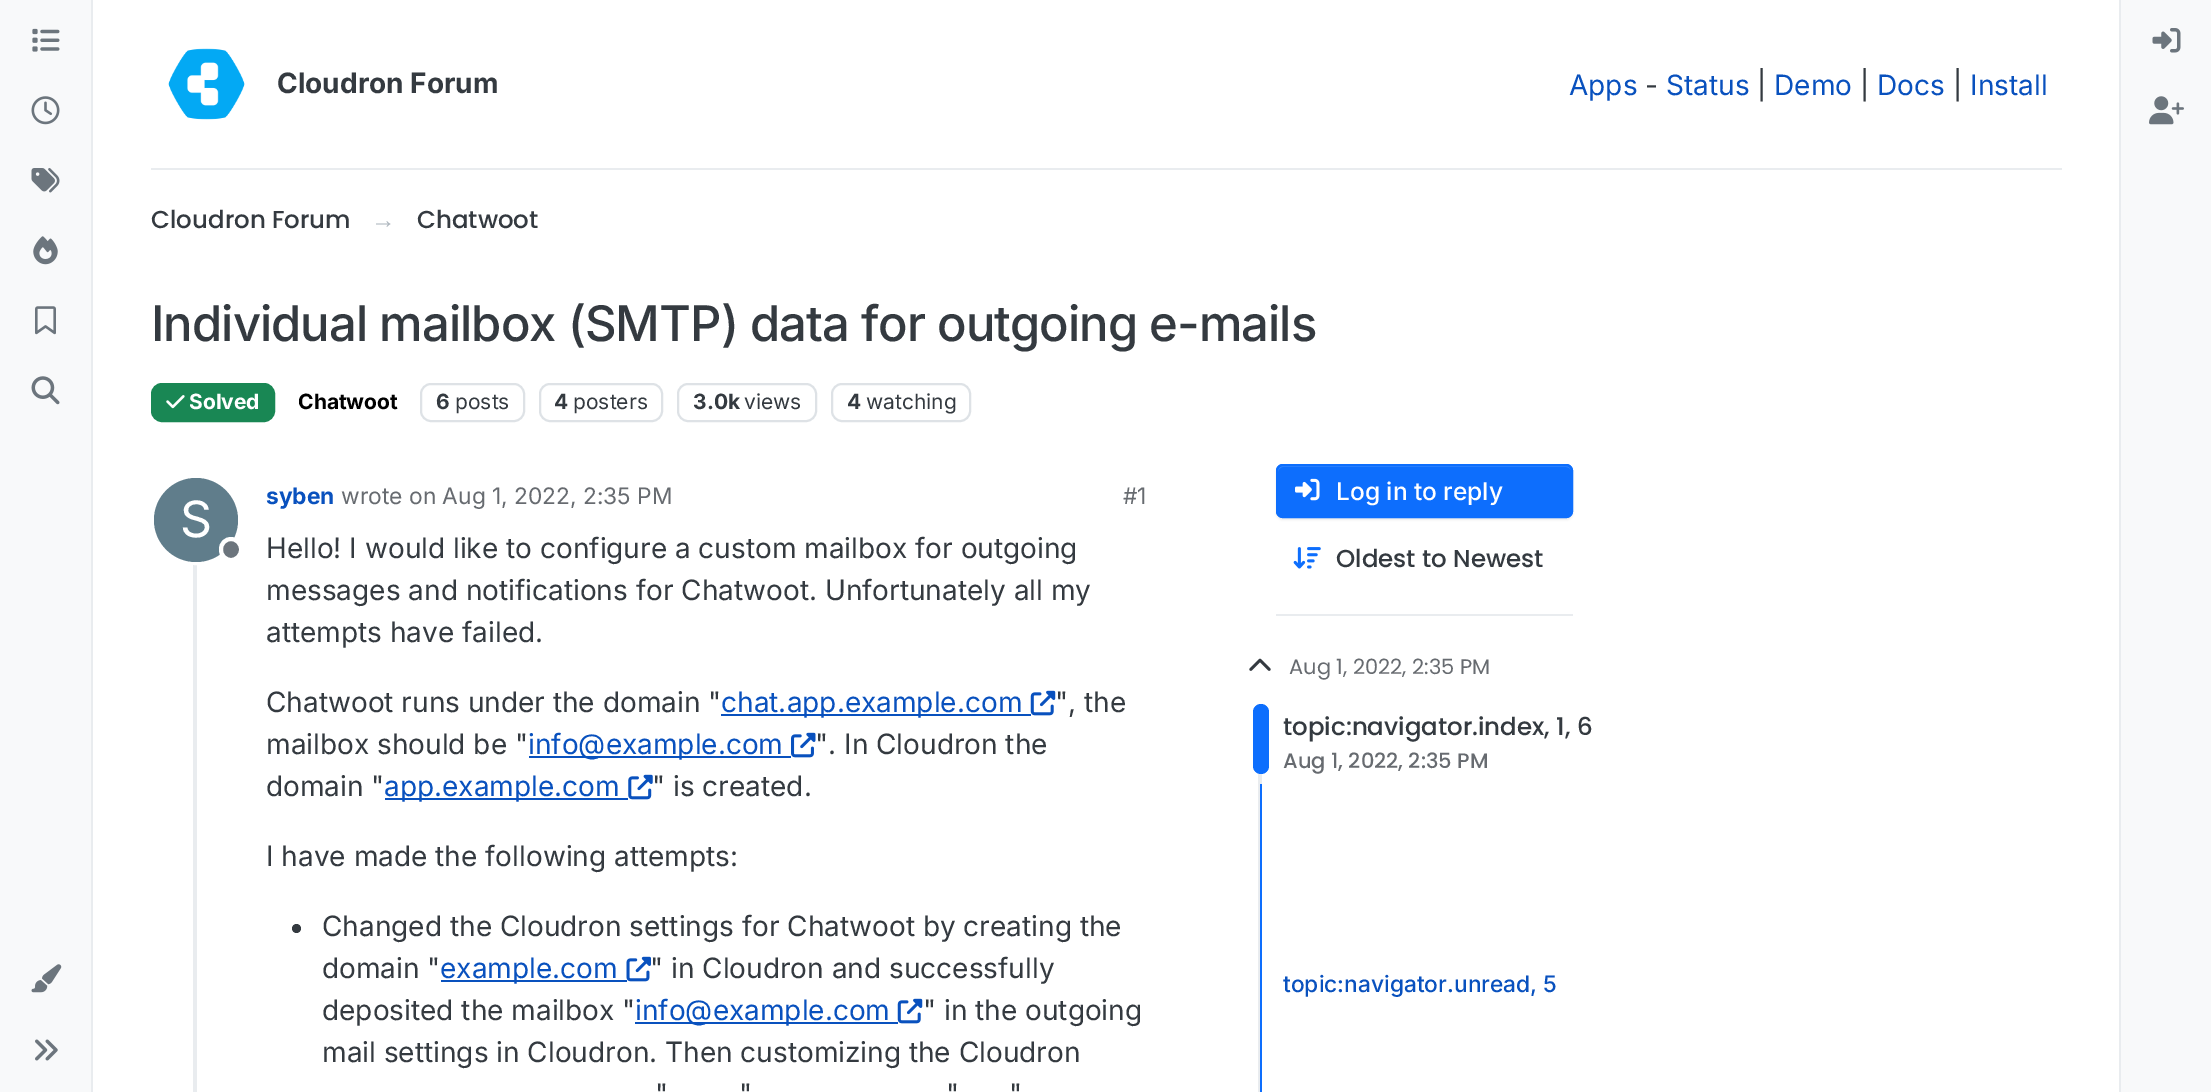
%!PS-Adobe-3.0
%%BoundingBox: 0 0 2211 1092
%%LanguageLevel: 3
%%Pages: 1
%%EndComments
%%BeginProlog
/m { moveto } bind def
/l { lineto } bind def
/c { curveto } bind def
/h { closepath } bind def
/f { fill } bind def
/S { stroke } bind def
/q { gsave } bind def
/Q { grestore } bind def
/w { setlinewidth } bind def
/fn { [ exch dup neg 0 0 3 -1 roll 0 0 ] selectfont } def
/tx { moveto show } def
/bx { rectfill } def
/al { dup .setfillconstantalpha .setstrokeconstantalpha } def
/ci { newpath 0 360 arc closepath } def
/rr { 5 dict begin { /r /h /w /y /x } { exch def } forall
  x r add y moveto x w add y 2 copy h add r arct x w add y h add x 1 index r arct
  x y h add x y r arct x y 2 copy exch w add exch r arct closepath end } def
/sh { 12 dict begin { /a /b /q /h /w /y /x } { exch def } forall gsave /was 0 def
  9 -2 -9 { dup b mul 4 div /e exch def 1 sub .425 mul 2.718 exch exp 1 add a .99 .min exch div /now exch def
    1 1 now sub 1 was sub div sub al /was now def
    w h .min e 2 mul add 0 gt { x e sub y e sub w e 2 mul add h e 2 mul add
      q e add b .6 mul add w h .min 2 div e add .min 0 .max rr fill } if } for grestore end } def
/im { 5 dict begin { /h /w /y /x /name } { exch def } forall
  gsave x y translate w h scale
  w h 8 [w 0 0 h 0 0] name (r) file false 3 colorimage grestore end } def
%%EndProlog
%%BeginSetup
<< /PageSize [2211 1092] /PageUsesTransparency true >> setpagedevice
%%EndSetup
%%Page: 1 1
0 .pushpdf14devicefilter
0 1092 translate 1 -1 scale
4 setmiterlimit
1 setgray
0 0 2211 1092 bx
0.973 0.976 0.98 setrgbcolor
0 0 91 1092 bx
0.914 0.925 0.937 setrgbcolor
91 0 2 1092 bx
(image0.raw) 32 28 28 24 im
(image1.raw) 31 96 29 29 im
(image2.raw) 31 168 29 25 im
(image3.raw) 33 236 25 29 im
(image4.raw) 35 306 21 29 im
(image5.raw) 31 376 29 29 im
(image6.raw) 31 964 31 29 im
(image7.raw) 35 1039 23 22 im
151 168 1911 2 bx
(image8.raw) 168 48 77 72 im
/Inter-Bold 28 fn
0.204 0.227 0.251 setrgbcolor
(Cloudron Forum) 277 93 tx
/Inter-Regular 28 fn
0.035 0.318 0.745 setrgbcolor
(Apps) 1569 95 tx
0.204 0.227 0.251 setrgbcolor
(-) 1645 95 tx
0.035 0.318 0.745 setrgbcolor
(Status) 1666 95 tx
0.204 0.227 0.251 setrgbcolor
(|) 1757 95 tx
0.035 0.318 0.745 setrgbcolor
(Demo) 1774 95 tx
0.204 0.227 0.251 setrgbcolor
(|) 1860 95 tx
0.035 0.318 0.745 setrgbcolor
(Docs) 1877 95 tx
0.204 0.227 0.251 setrgbcolor
(|) 1953 95 tx
0.035 0.318 0.745 setrgbcolor
(Install) 1970 95 tx
/Poppins-Medium 24.5 fn
0.204 0.227 0.251 setrgbcolor
(Cloudron Forum) 151 228 tx
/LiberationSans-Regular 24.5 fn
0.678 0.71 0.741 setrgbcolor
(→) 371 228 tx
/Poppins-Medium 24.5 fn
0.204 0.227 0.251 setrgbcolor
(Chatwoot) 417 228 tx
/Inter-Medium 49 fn
151 341 m -0.98 0 (Individual mailbox \(SMTP\) data for outgoing e-mails) ashow
0.098 0.529 0.329 setrgbcolor
152 384 122 37 10 rr q f Q
2 w
S
(image9.raw) 166 395 19 14 im
/Inter-Bold 21 fn
1 setgray
(Solved) 189 409 tx
0 setgray
(Chatwoot) 298 409 tx
0.871 0.886 0.902 setrgbcolor
421 384 103 37 10 rr S
0.204 0.227 0.251 setrgbcolor
(6) 436 409 tx
/Inter-Regular 21 fn
(posts) 455 409 tx
0.871 0.886 0.902 setrgbcolor
540 384 122 37 10 rr S
/Inter-Bold 21 fn
0.204 0.227 0.251 setrgbcolor
(4) 554 409 tx
/Inter-Regular 21 fn
(posters) 573 409 tx
0.871 0.886 0.902 setrgbcolor
678 384 138 37 10 rr S
/Inter-Bold 21 fn
0.204 0.227 0.251 setrgbcolor
(3.0k) 693 409 tx
/Inter-Regular 21 fn
(views) 744 409 tx
0.871 0.886 0.902 setrgbcolor
832 384 138 37 10 rr S
/Inter-Bold 21 fn
0.204 0.227 0.251 setrgbcolor
(4) 847 409 tx
/Inter-Regular 21 fn
(watching) 866 409 tx
0.914 0.925 0.937 setrgbcolor
193 478 4 614 bx
1 setgray
4 w
196.5 519.5 43.5 ci S
0.376 0.49 0.545 setrgbcolor
196 520 42 ci f
/Inter-Regular 50 fn
1 setgray
(S) 180 537 tx
0.424 0.459 0.49 setrgbcolor
221 539 20 21 10 rr q f Q
1 setgray
S
/Inter-Bold 22.75 fn
0.035 0.318 0.745 setrgbcolor
(syben) 266 504 tx
/Inter-Regular 22.75 fn
0.404 0.42 0.439 setrgbcolor
(wrote on Aug 1, 2022, 2:35 PM) 341 504 tx
(#1) 1123 504 tx
/Inter-Regular 28 fn
0.204 0.227 0.251 setrgbcolor
(Hello! I would like to configure a custom mailbox for outgoing) 266 558 tx
(messages and notifications for Chatwoot. Unfortunately all my) 266 600 tx
(attempts have failed.) 266 642 tx
(Chatwoot runs under the domain ") 266 712 tx
0.035 0.318 0.745 setrgbcolor
721 714 310 2 bx
(chat.app.example.com) 721 712 tx
(image10.raw) 1030 690 26 26 im
0.204 0.227 0.251 setrgbcolor
(", the) 1055 712 tx
(mailbox should be ") 266 754 tx
0.035 0.318 0.745 setrgbcolor
529 756 262 2 bx
(info@example.com) 528 754 tx
(image11.raw) 791 732 25 26 im
0.204 0.227 0.251 setrgbcolor
(". In Cloudron the) 815 754 tx
(domain ") 266 796 tx
0.035 0.318 0.745 setrgbcolor
385 798 243 2 bx
(app.example.com) 384 796 tx
(image12.raw) 628 774 25 26 im
0.204 0.227 0.251 setrgbcolor
(" is created.) 652 796 tx
(I have made the following attempts:) 266 866 tx
296.5 928.5 4.5 ci f
(Changed the Cloudron settings for Chatwoot by creating the) 322 936 tx
(domain ") 322 978 tx
0.035 0.318 0.745 setrgbcolor
441 980 186 2 bx
(example.com) 440 978 tx
(image13.raw) 626 956 25 26 im
0.204 0.227 0.251 setrgbcolor
(" in Cloudron and successfully) 650 978 tx
(deposited the mailbox ") 322 1020 tx
0.035 0.318 0.745 setrgbcolor
635 1022 263 2 bx
(info@example.com) 635 1020 tx
(image10.raw) 897 998 26 26 im
0.204 0.227 0.251 setrgbcolor
(" in the outgoing) 923 1020 tx
(mail settings in Cloudron. Then customizing the Cloudron) 322 1062 tx
(") 655 1104 tx
(") 739 1104 tx
(") 946 1104 tx
(") 1009 1104 tx
0 setgray
1276 466 297 54 7 1 0.07 sh
0.051 0.431 0.992 setrgbcolor
1276 464 297 54 7 rr f
0.192 0.518 0.992 setrgbcolor
1283 467 m 1566 467 l 1569 467 1572 470 1572 472 c 1572 471 l 1572 468 1570 466 1567 466 c 1283 466 l 1280 466 1278 468 1278 471 c 1278 472 l 1278 470 1280 467 1283 467 c h f
0.051 0.431 0.992 setrgbcolor
2 w
1277 465 295 52 6 rr S
(image14.raw) 1295 478 25 23 im
/Inter-Medium 24.5 fn
1 setgray
(Log in to reply) 1336 500 tx
(image15.raw) 1293 547 28 22 im
/Poppins-Medium 24.5 fn
0.204 0.227 0.251 setrgbcolor
(Oldest to Newest) 1336 567 tx
0.914 0.925 0.937 setrgbcolor
1276 614 297 2 bx
(image16.raw) 1249 658 22 13 im
/Poppins-Regular 21 fn
0.404 0.42 0.439 setrgbcolor
(Aug 1, 2022, 2:35 PM) 1289 674 tx
0.914 0.925 0.937 setrgbcolor
1258 704 4 388 bx
0.051 0.431 0.992 setrgbcolor
1253 704 16 70 8 rr f
/Poppins-Medium 24.5 fn
0.204 0.227 0.251 setrgbcolor
(topic:navigator.index, 1, 6) 1283 735 tx
/Poppins-Medium 21 fn
0.404 0.42 0.439 setrgbcolor
(Aug 1, 2022, 2:35 PM) 1283 768 tx
0.051 0.431 0.992 setrgbcolor
1260 784 2 308 bx
/Inter-Medium 22.75 fn
0.035 0.318 0.745 setrgbcolor
(topic:navigator.unread, 5) 1283 992 tx
0.973 0.976 0.98 setrgbcolor
2121 0 90 1092 bx
0.914 0.925 0.937 setrgbcolor
2119 0 2 1092 bx
(image17.raw) 2152 28 29 25 im
(image18.raw) 2149 96 35 29 im
.poppdf14devicefilter showpage
%%EOF
